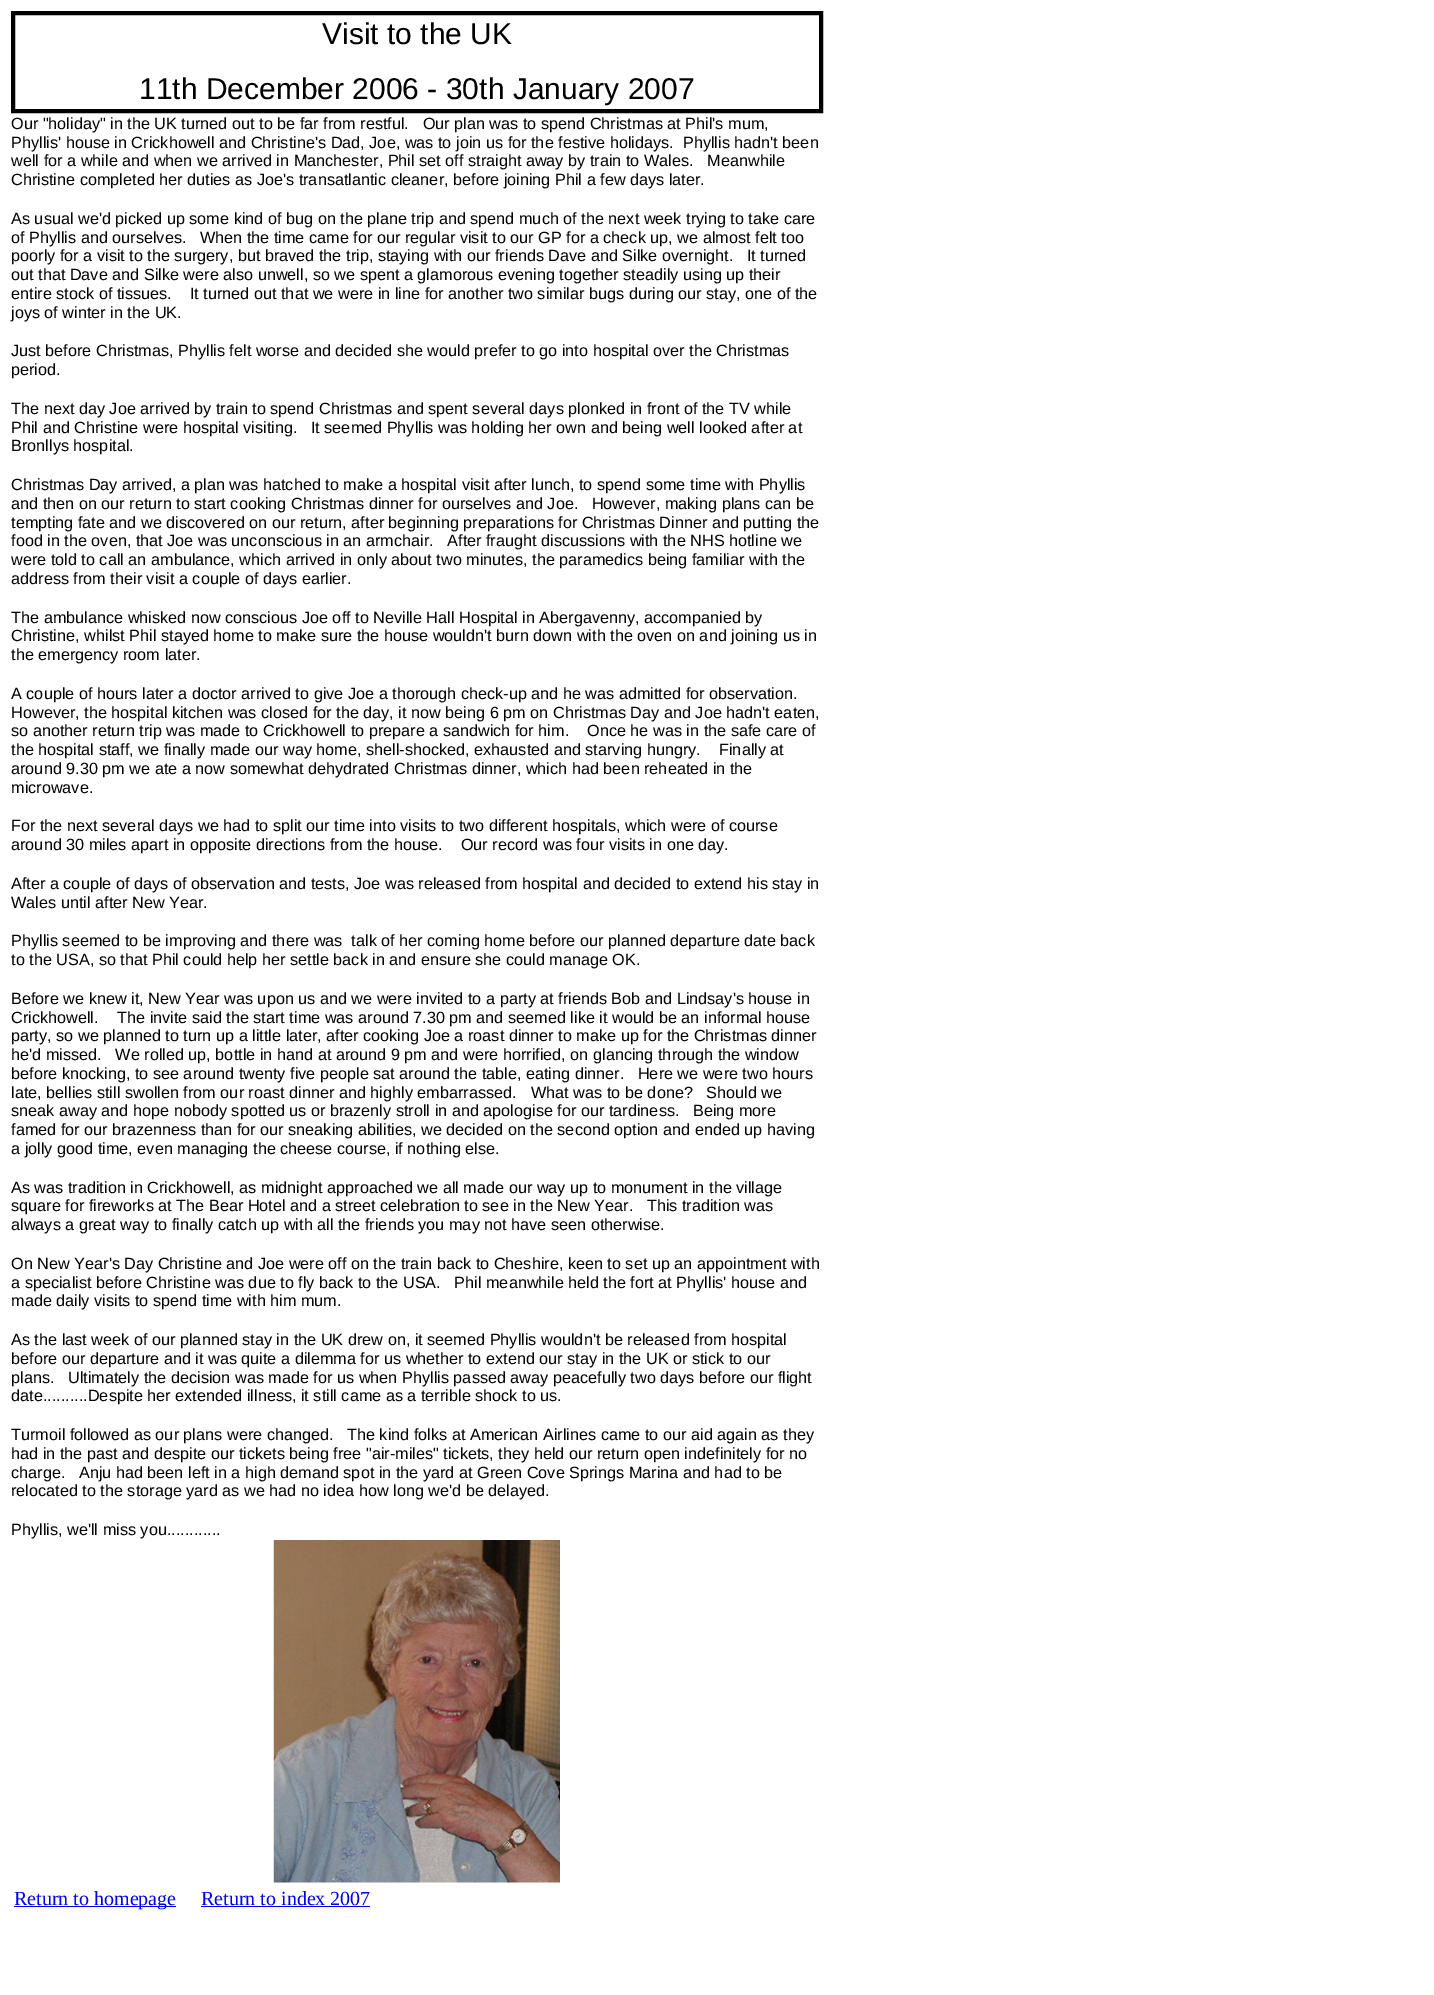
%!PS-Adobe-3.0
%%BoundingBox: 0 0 1434 1995
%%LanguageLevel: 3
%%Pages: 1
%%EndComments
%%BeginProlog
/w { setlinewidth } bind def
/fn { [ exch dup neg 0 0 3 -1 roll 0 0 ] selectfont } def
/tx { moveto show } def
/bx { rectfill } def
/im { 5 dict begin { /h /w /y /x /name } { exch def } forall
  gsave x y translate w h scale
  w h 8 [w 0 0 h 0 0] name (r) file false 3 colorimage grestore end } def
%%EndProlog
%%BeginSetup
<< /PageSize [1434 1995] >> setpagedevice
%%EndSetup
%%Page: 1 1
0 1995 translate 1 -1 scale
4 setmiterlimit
1 setgray
0 0 1434 1995 bx
0 setgray
4 w
13 13 808 98 rectstroke
/LiberationSans-Regular 30 fn
(Visit to the UK) 322 44 tx
(11th December 2006 - 30th January 2007) 139 99 tx
/LiberationSans-Regular 16.25 fn
(Our "holiday" in the UK turned out to be far from restful.   Our plan was to spend Christmas at Phil's mum,) 11 129 tx
(Phyllis' house in Crickhowell and Christine's Dad, Joe, was to join us for the festive holidays.  Phyllis hadn't been) 11 148 tx
(well for a while and when we arrived in Manchester, Phil set off straight away by train to Wales.   Meanwhile) 11 166 tx
(Christine completed her duties as Joe's transatlantic cleaner, before joining Phil a few days later.) 11 185 tx
(As usual we'd picked up some kind of bug on the plane trip and spend much of the next week trying to take care) 11 224 tx
(of Phyllis and ourselves.   When the time came for our regular visit to our GP for a check up, we almost felt too) 11 243 tx
(poorly for a visit to the surgery, but braved the trip, staying with our friends Dave and Silke overnight.   It turned) 11 261 tx
(out that Dave and Silke were also unwell, so we spent a glamorous evening together steadily using up their) 11 280 tx
(entire stock of tissues.    It turned out that we were in line for another two similar bugs during our stay, one of the) 11 299 tx
(joys of winter in the UK.) 11 318 tx
(Just before Christmas, Phyllis felt worse and decided she would prefer to go into hospital over the Christmas) 11 356 tx
(period.) 11 375 tx
(The next day Joe arrived by train to spend Christmas and spent several days plonked in front of the TV while) 11 414 tx
(Phil and Christine were hospital visiting.   It seemed Phyllis was holding her own and being well looked after at) 11 433 tx
(Bronllys hospital.) 11 451 tx
(Christmas Day arrived, a plan was hatched to make a hospital visit after lunch, to spend some time with Phyllis) 11 490 tx
(and then on our return to start cooking Christmas dinner for ourselves and Joe.   However, making plans can be) 11 509 tx
(tempting fate and we discovered on our return, after beginning preparations for Christmas Dinner and putting the) 11 528 tx
(food in the oven, that Joe was unconscious in an armchair.   After fraught discussions with the NHS hotline we) 11 546 tx
(were told to call an ambulance, which arrived in only about two minutes, the paramedics being familiar with the) 11 565 tx
(address from their visit a couple of days earlier.) 11 584 tx
(The ambulance whisked now conscious Joe off to Neville Hall Hospital in Abergavenny, accompanied by) 11 623 tx
(Christine, whilst Phil stayed home to make sure the house wouldn't burn down with the oven on and joining us in) 11 641 tx
(the emergency room later.) 11 660 tx
(A couple of hours later a doctor arrived to give Joe a thorough check-up and he was admitted for observation.) 11 699 tx
(However, the hospital kitchen was closed for the day, it now being 6 pm on Christmas Day and Joe hadn't eaten,) 11 718 tx
(so another return trip was made to Crickhowell to prepare a sandwich for him.    Once he was in the safe care of) 11 736 tx
(the hospital staff, we finally made our way home, shell-shocked, exhausted and starving hungry.    Finally at) 11 755 tx
(around 9.30 pm we ate a now somewhat dehydrated Christmas dinner, which had been reheated in the) 11 774 tx
(microwave.) 11 793 tx
(For the next several days we had to split our time into visits to two different hospitals, which were of course) 11 831 tx
(around 30 miles apart in opposite directions from the house.    Our record was four visits in one day.) 11 850 tx
(After a couple of days of observation and tests, Joe was released from hospital and decided to extend his stay in) 11 889 tx
(Wales until after New Year.) 11 908 tx
(Phyllis seemed to be improving and there was  talk of her coming home before our planned departure date back) 11 946 tx
(to the USA, so that Phil could help her settle back in and ensure she could manage OK.) 11 965 tx
(Before we knew it, New Year was upon us and we were invited to a party at friends Bob and Lindsay's house in) 11 1004 tx
(Crickhowell.) 11 1023 tx
(The invite said the start time was around 7.30 pm and seemed like it would be an informal house) 117 1023 tx
(party, so we planned to turn up a little later, after cooking Joe a roast dinner to make up for the Christmas dinner) 11 1041 tx
(he'd missed.   We rolled up, bottle in hand at around 9 pm and were horrified, on glancing through the window) 11 1060 tx
(before knocking, to see around twenty five people sat around the table, eating dinner.   Here we were two hours) 11 1079 tx
(late, bellies still swollen from our roast dinner and highly embarrassed.) 11 1098 tx
(What was to be done?   Should we) 531 1098 tx
(sneak away and hope nobody spotted us or brazenly stroll in and apologise for our tardiness.   Being more) 11 1116 tx
(famed for our brazenness than for our sneaking abilities, we decided on the second option and ended up having) 11 1135 tx
(a jolly good time, even managing the cheese course, if nothing else.) 11 1154 tx
(As was tradition in Crickhowell, as midnight approached we all made our way up to monument in the village) 11 1193 tx
(square for fireworks at The Bear Hotel and a street celebration to see in the New Year.   This tradition was) 11 1211 tx
(always a great way to finally catch up with all the friends you may not have seen otherwise.) 11 1230 tx
(On New Year's Day Christine and Joe were off on the train back to Cheshire, keen to set up an appointment with) 11 1269 tx
(a specialist before Christine was due to fly back to the USA.   Phil meanwhile held the fort at Phyllis' house and) 11 1288 tx
(made daily visits to spend time with him mum.) 11 1306 tx
(As the last week of our planned stay in the UK drew on, it seemed Phyllis wouldn't be released from hospital) 11 1345 tx
(before our departure and it was quite a dilemma for us whether to extend our stay in the UK or stick to our) 11 1364 tx
(plans.   Ultimately the decision was made for us when Phyllis passed away peacefully two days before our flight) 11 1383 tx
(date..........Despite her extended illness, it still came as a terrible shock to us.) 11 1401 tx
(Turmoil followed as our plans were changed.   The kind folks at American Airlines came to our aid again as they) 11 1440 tx
(had in the past and despite our tickets being free "air-miles" tickets, they held our return open indefinitely for no) 11 1459 tx
(charge.   Anju had been left in a high demand spot in the yard at Green Cove Springs Marina and had to be) 11 1478 tx
(relocated to the storage yard as we had no idea how long we'd be delayed.) 11 1496 tx
(Phyllis, we'll miss you............) 11 1535 tx
(image0.raw) 273 1540 287 343 im
0 0 0.933 setrgbcolor
14 1906 162 1 bx
/LiberationSerif-Regular 20 fn
(Return to homepage) 14 1905 tx
(Return to index 2007) 201 1905 tx
201 1906 169 1 bx
showpage
%%EOF
